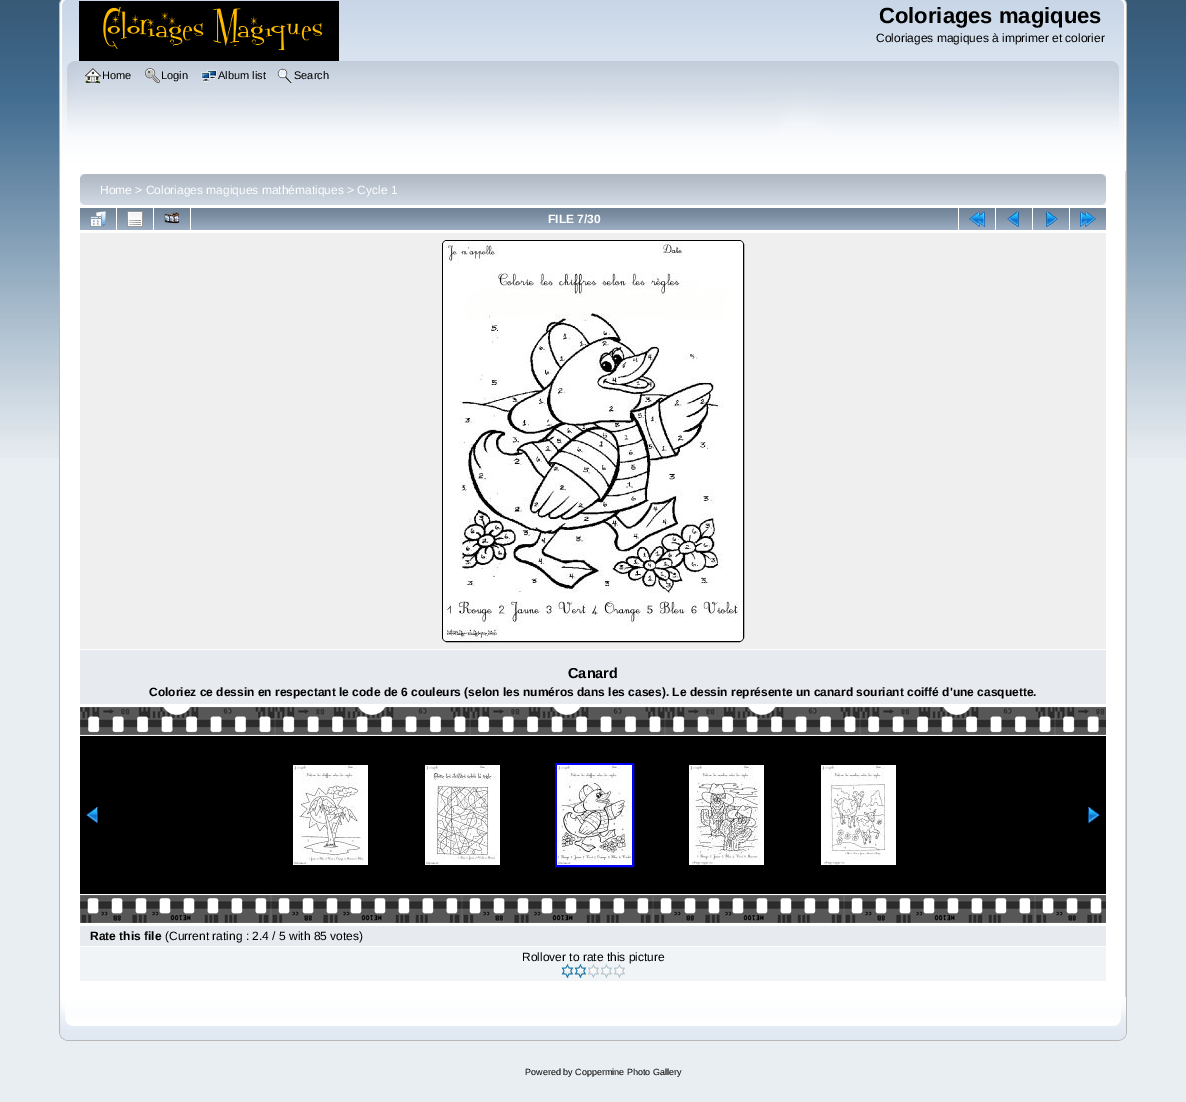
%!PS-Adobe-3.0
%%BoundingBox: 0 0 1186 1102
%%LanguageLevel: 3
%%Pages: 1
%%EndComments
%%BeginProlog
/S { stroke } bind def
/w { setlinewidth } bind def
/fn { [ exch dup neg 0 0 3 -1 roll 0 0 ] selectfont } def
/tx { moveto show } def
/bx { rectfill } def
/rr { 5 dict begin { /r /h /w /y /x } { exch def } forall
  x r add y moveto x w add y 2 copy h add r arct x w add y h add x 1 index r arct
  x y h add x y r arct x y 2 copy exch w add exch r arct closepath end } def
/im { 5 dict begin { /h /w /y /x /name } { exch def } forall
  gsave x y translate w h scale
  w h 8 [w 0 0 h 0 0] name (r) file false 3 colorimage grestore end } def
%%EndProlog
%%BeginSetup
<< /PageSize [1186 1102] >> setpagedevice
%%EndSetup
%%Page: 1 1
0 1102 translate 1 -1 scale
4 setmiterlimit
0.914 0.933 0.949 setrgbcolor
0 0 1186 1102 bx
(image0.raw) 0 0 1186 458 im
(image1.raw) 59 0 1062 61 im
(image2.raw) 1121 0 6 61 im
(image3.raw) 79 1 260 60 im
/LiberationSans-Bold 22 fn
0 setgray
(Coloriages magiques) 879 23 tx
/LiberationSans-Regular 12 fn
(Coloriages magiques à imprimer et colorier) 876 42 tx
(image4.raw) 59 61 1053 110 im
(image5.raw) 1112 61 15 110 im
(image6.raw) 85 68 16 16 im
/LiberationSans-Regular 11 fn
(Home) 102 79 tx
(image7.raw) 145 68 15 15 im
(Login) 161 79 tx
(image8.raw) 201 70 16 12 im
(Album list) 218 79 tx
(image9.raw) 277 68 16 15 im
(Search) 294 79 tx
1 setgray
60 171 1065 826 bx
0.718 setgray
59 171 1 826 bx
(image10.raw) 1125 171 2 826 im
(image11.raw) 80 174 1021 31 im
(image12.raw) 1101 174 5 31 im
/LiberationSans-Regular 12 fn
1 setgray
(Home > Coloriages magiques mathématiques > Cycle 1) 100 194 tx
(image13.raw) 80 208 36 22 im
(image14.raw) 90 211 16 16 im
(image13.raw) 117 208 36 22 im
(image15.raw) 127 211 16 16 im
(image13.raw) 154 208 36 22 im
(image16.raw) 164 212 16 12 im
(image17.raw) 191 208 767 22 im
/LiberationSans-Bold 12 fn
(FILE 7/30) 548 223 tx
(image13.raw) 959 208 36 22 im
(image18.raw) 969 211 16 16 im
(image13.raw) 996 208 36 22 im
(image19.raw) 1007 211 12 16 im
(image13.raw) 1033 208 36 22 im
(image20.raw) 1046 211 12 16 im
(image13.raw) 1070 208 36 22 im
(image21.raw) 1080 211 16 16 im
0.937 setgray
80 233 1026 416 bx
0 setgray
442.5 240.5 301 401 4.5 rr S
(image22.raw) 443 241 300 400 im
0.906 0.918 0.937 setrgbcolor
80 650 1026 54 bx
/LiberationSans-Bold 14.5 fn
0 setgray
(Canard) 568 678 tx
/LiberationSans-Bold 12 fn
(Coloriez ce dessin en respectant le code de 6 couleurs \(selon les numéros dans les cases\). Le dessin représente un canard souriant coiffé d'une casquette.) 149 696 tx
(image23.raw) 80 707 1026 28 im
80 736 1026 158 bx
(image24.raw) 86 807 12 16 im
(image25.raw) 293 765 75 100 im
(image26.raw) 425 765 75 100 im
0 0 1 setrgbcolor
2 w
556 764 77 102 rectstroke
(image27.raw) 557 765 75 100 im
(image28.raw) 689 765 75 100 im
(image29.raw) 821 765 75 100 im
(image30.raw) 1088 807 12 16 im
(image31.raw) 80 895 1026 28 im
0.906 0.918 0.937 setrgbcolor
80 926 1026 20 bx
0 setgray
(Rate this file) 90 940 tx
/LiberationSans-Regular 12 fn
(\(Current rating : 2.4 / 5 with 85 votes\)) 165 940 tx
0.941 0.957 0.969 setrgbcolor
80 947 1026 34 bx
0 setgray
(Rollover to rate this picture) 522 961 tx
(image32.raw) 561 964 13 14 im
(image32.raw) 574 964 13 14 im
(image33.raw) 587 964 13 14 im
(image33.raw) 600 964 13 14 im
(image33.raw) 613 964 13 14 im
(image34.raw) 59 997 1055 44 im
(image35.raw) 1114 997 13 44 im
/LiberationSans-Regular 9 fn
(Powered by Coppermine Photo Gallery) 525 1075 tx
showpage
%%EOF
